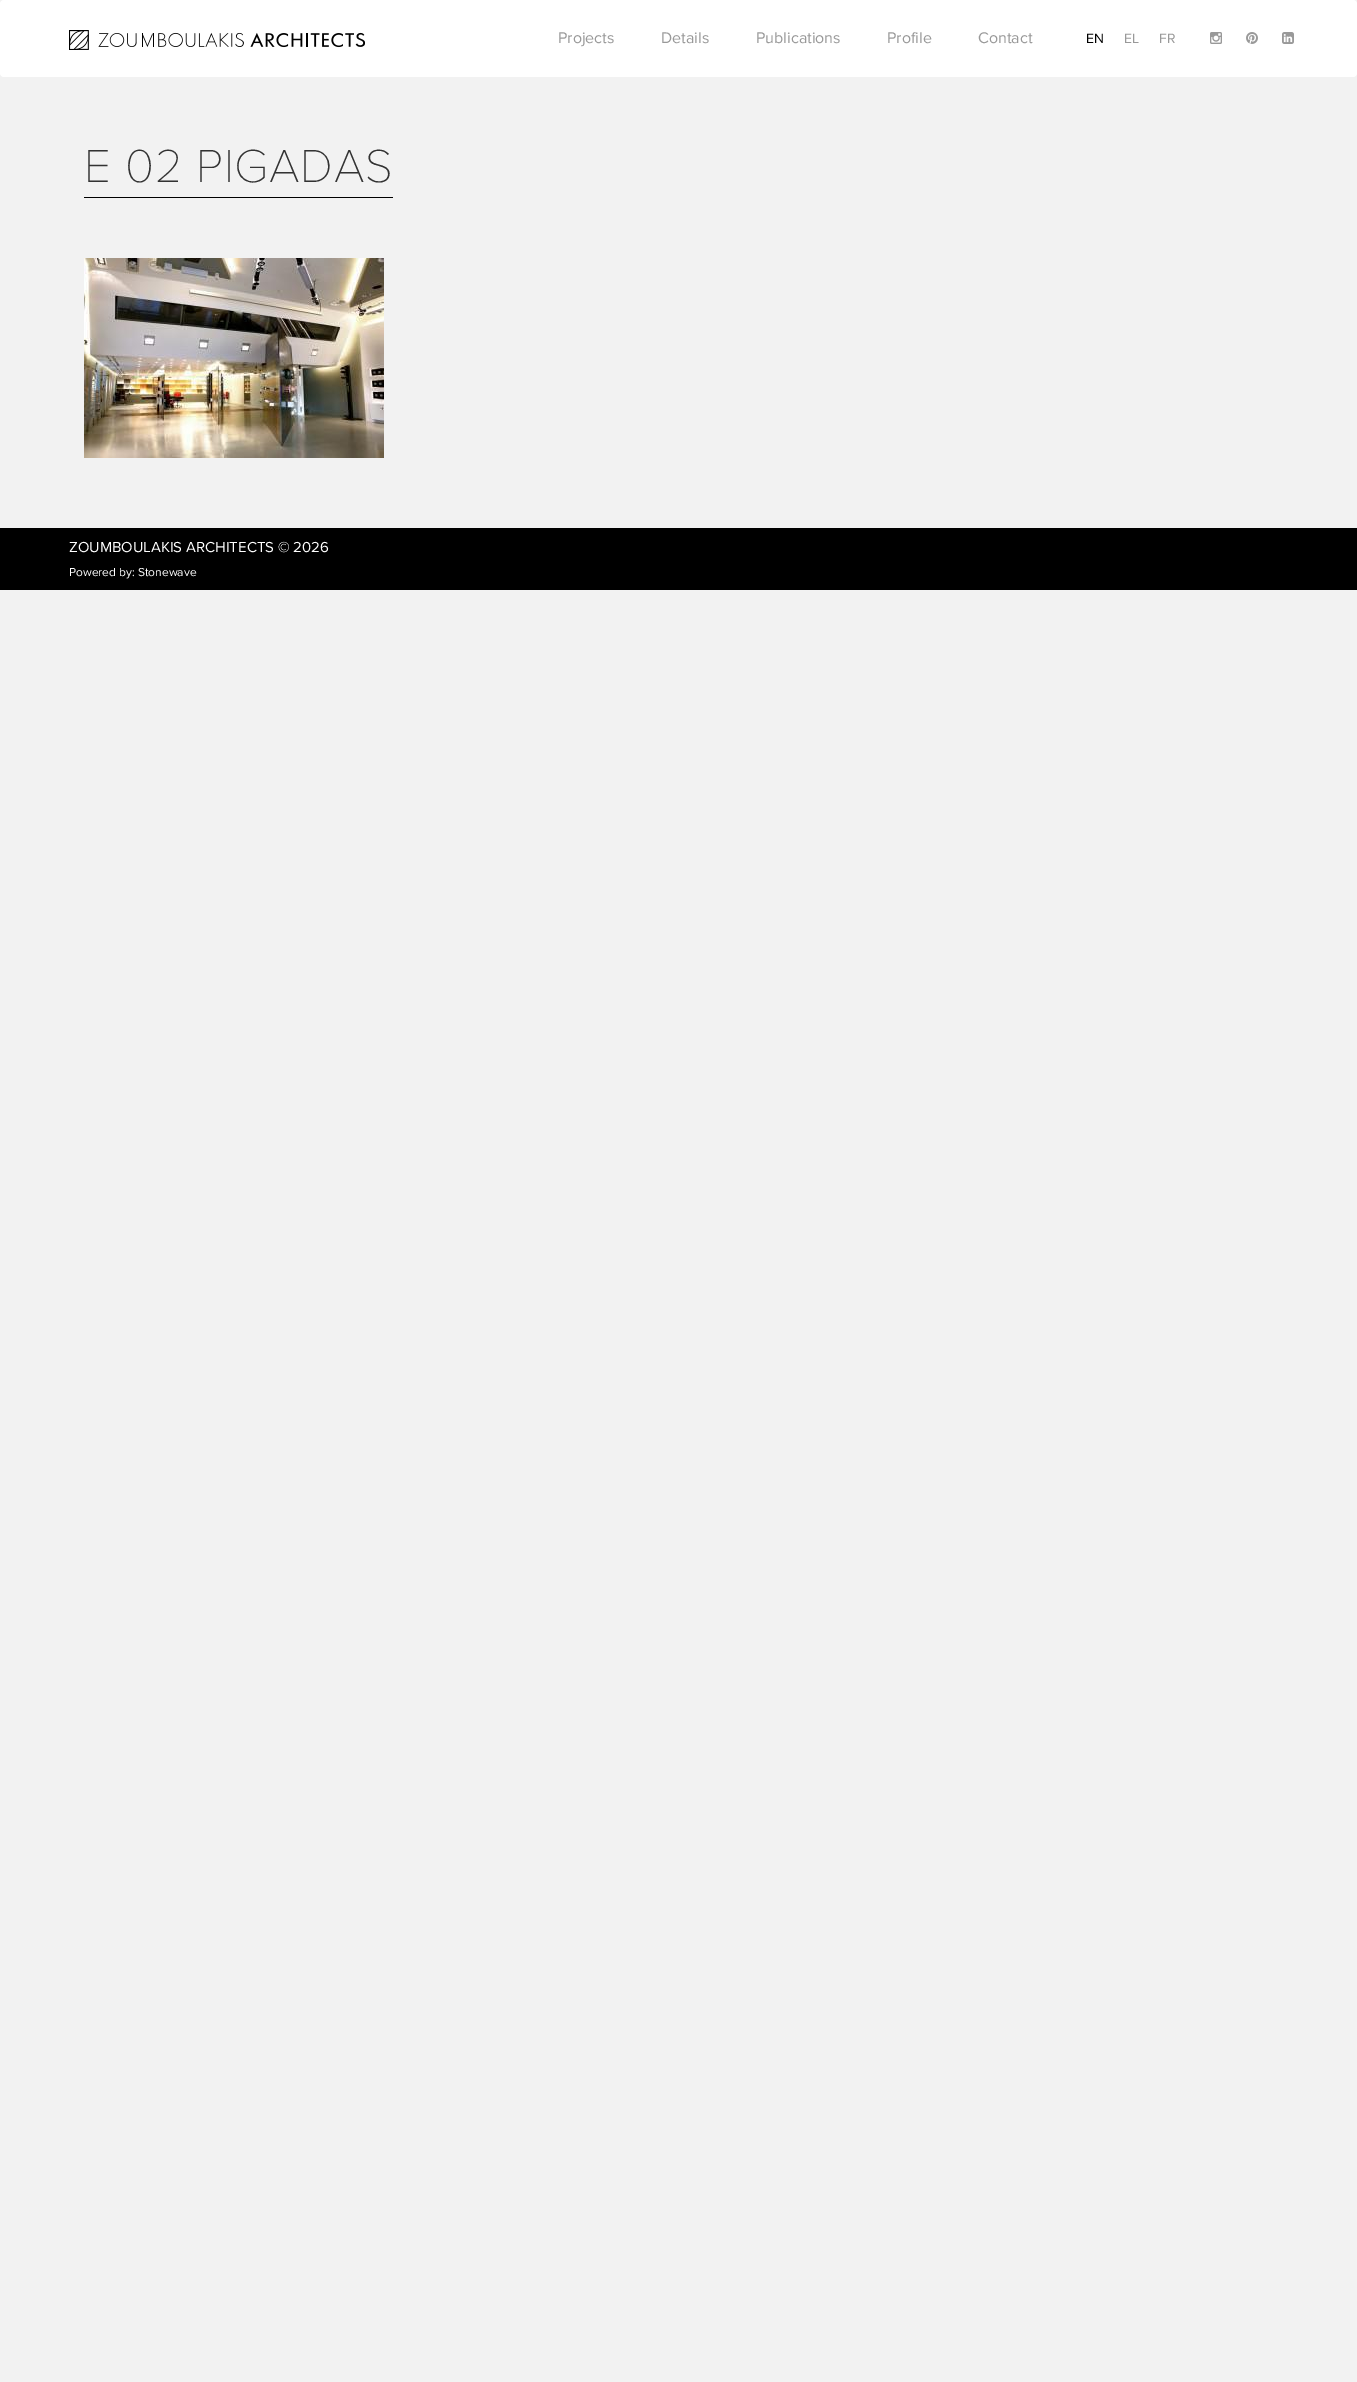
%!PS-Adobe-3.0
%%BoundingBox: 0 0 1357 2382
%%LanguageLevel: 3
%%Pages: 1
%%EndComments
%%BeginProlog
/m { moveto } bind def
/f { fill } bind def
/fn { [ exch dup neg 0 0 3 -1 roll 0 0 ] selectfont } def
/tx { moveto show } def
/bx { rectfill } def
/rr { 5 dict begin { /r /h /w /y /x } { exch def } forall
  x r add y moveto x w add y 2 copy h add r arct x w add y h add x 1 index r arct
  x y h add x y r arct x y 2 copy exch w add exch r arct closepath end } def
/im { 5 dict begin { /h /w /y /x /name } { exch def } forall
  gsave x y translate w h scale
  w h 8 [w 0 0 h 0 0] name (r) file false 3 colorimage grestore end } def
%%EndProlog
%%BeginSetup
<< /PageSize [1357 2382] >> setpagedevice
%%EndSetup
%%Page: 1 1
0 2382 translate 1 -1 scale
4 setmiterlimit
0.949 setgray
0 0 1357 2382 bx
1 setgray
0 0 1357 77 4 rr f
(image0.raw) 69 30 296 20 im
/ProximaNova-Regular 16 fn
0.6 setgray
(Projects) 558 43 tx
(Details) 661 43 tx
(Publications) 756 43 tx
(Profile) 887 43 tx
(Contact) 978 43 tx
/ProximaNova-Regular 14 fn
0 setgray
(EN) 1086 43 tx
0.6 setgray
(EL) 1124 43 tx
(FR) 1159 43 tx
(image1.raw) 1210 32 12 12 im
(image2.raw) 1246 32 12 12 im
(image3.raw) 1282 32 12 12 im
0 setgray
84 197 309 1 bx
/ProximaNova-Thin 48 fn
0.2 setgray
84 182 m 0.75 0 (E 02 PIGADAS) ashow
(image4.raw) 84 258 300 200 im
0 setgray
0 528 1357 62 bx
/ProximaNova-Regular 15 fn
1 setgray
(ZOUMBOULAKIS ARCHITECTS © 2026) 69 552 tx
/ProximaNova-Regular 12 fn
(Powered by: Stonewave) 69 576 tx
showpage
%%EOF
